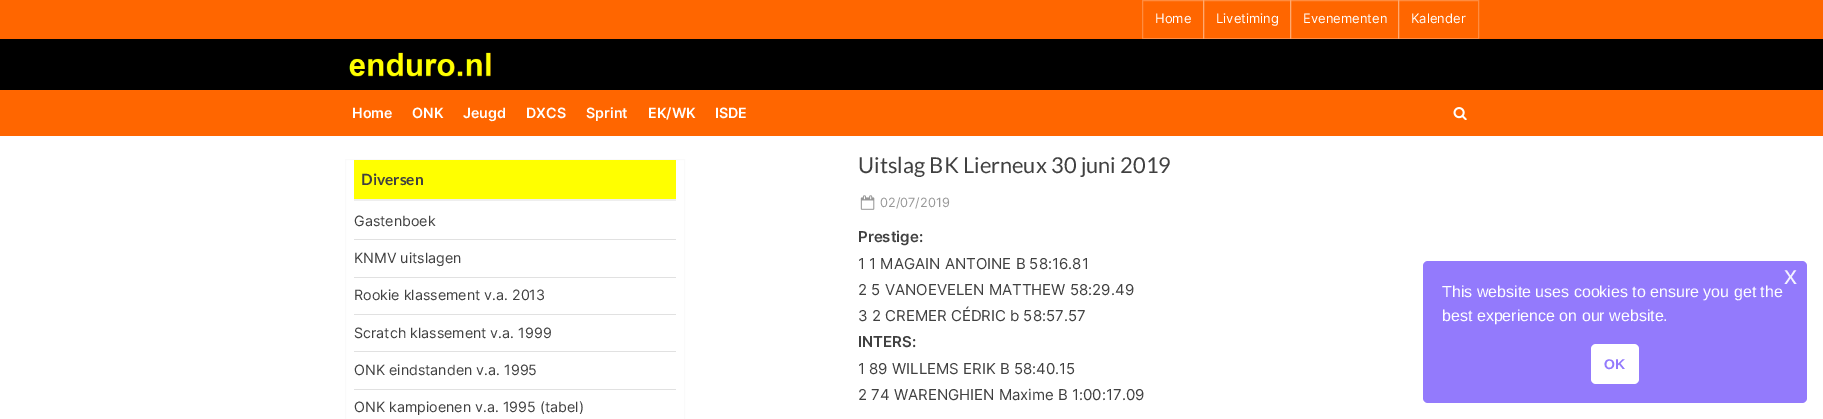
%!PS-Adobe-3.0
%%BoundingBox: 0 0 1823 419
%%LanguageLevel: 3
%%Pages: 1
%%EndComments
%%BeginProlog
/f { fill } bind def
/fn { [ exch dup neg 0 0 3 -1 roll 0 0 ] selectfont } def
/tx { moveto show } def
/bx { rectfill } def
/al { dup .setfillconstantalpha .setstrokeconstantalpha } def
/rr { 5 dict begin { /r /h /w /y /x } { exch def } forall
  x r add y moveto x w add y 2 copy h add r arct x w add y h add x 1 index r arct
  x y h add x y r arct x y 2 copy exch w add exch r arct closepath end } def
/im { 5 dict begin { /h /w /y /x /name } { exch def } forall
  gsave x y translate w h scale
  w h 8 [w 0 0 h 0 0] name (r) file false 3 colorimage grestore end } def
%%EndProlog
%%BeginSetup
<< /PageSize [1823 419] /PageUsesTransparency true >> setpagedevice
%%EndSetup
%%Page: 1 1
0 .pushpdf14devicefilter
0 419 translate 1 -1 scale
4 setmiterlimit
1 setgray
0 0 1823 419 bx
1 0.4 0 setrgbcolor
0 0 1823 39 bx
1 0.549 0.251 setrgbcolor
1142.5 0.5 61 38 rectstroke
/Inter-Regular 13 fn
1 setgray
(Home) 1155 23 tx
0.25 al
1203.5 0.5 87 38 rectstroke
1 al
(Livetiming) 1216 23 tx
0.25 al
1290.5 0.5 108 38 rectstroke
1 al
(Evenementen) 1303 23 tx
0.25 al
1398.5 0.5 80 38 rectstroke
1 al
(Kalender) 1411 23 tx
0 setgray
0 39 1823 51 bx
(image0.raw) 349 52 142 25 im
1 0.4 0 setrgbcolor
0 90 1823 46 bx
/Inter-SemiBold 14.25 fn
1 setgray
(Home) 352 118 tx
(ONK) 412 118 tx
(Jeugd) 463 118 tx
(DXCS) 526 118 tx
(Sprint) 586 118 tx
(EK/WK) 648 118 tx
(ISDE) 715 118 tx
(image1.raw) 1453 107 14 13 im
0.98 setgray
345.5 159.5 339 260 rectstroke
1 1 0 setrgbcolor
354 160 322 39 bx
0.933 setgray
354 199 322 2 bx
/Lato-Bold 15.5 fn
0.251 setgray
(Diversen) 361 185 tx
0.882 setgray
354 239 322 1 bx
/Inter-Regular 14.25 fn
0.251 setgray
(Gastenboek) 354 226 tx
0.882 setgray
354 277 322 1 bx
0.251 setgray
(KNMV uitslagen) 354 263 tx
0.882 setgray
354 314 322 1 bx
0.251 setgray
(Rookie klassement v.a. 2013) 354 300 tx
0.882 setgray
354 351 322 1 bx
0.251 setgray
(Scratch klassement v.a. 1999) 354 338 tx
0.882 setgray
354 389 322 1 bx
0.251 setgray
(ONK eindstanden v.a. 1995) 354 375 tx
(ONK kampioenen v.a. 1995 \(tabel\)) 354 412 tx
/Lato-Regular 21.9 fn
(Uitslag BK Lierneux 30 juni 2019) 858 173 tx
(image2.raw) 860 195 15 15 im
/Inter-Regular 12.75 fn
0.592 setgray
(02/07/2019) 880 207 tx
/Inter-SemiBold 15 fn
0.251 setgray
(Prestige:) 858 242 tx
/Inter-Regular 15 fn
(1 1 MAGAIN ANTOINE B 58:16.81) 858 269 tx
(2 5 VANOEVELEN MATTHEW 58:29.49) 858 295 tx
(3 2 CREMER CÉDRIC b 58:57.57) 858 321 tx
/Inter-SemiBold 15 fn
(INTERS:) 858 347 tx
/Inter-Regular 15 fn
(1 89 WILLEMS ERIK B 58:40.15) 858 374 tx
(2 74 WARENGHIEN Maxime B 1:00:17.09) 858 400 tx
0.576 0.478 0.988 setrgbcolor
1423 261 384 142 5 rr f
/LiberationSans-Regular 26 fn
0.957 0.949 1 setrgbcolor
(x) 1784 284 tx
/LiberationSans-Regular 16 fn
1 setgray
(This website uses cookies to ensure you get the) 1442 297 tx
(best experience on our website.) 1442 321 tx
1591 344 48 40 5 rr f
/LiberationSans-Bold 14 fn
0.576 0.478 0.988 setrgbcolor
(OK) 1604 369 tx
.poppdf14devicefilter showpage
%%EOF
